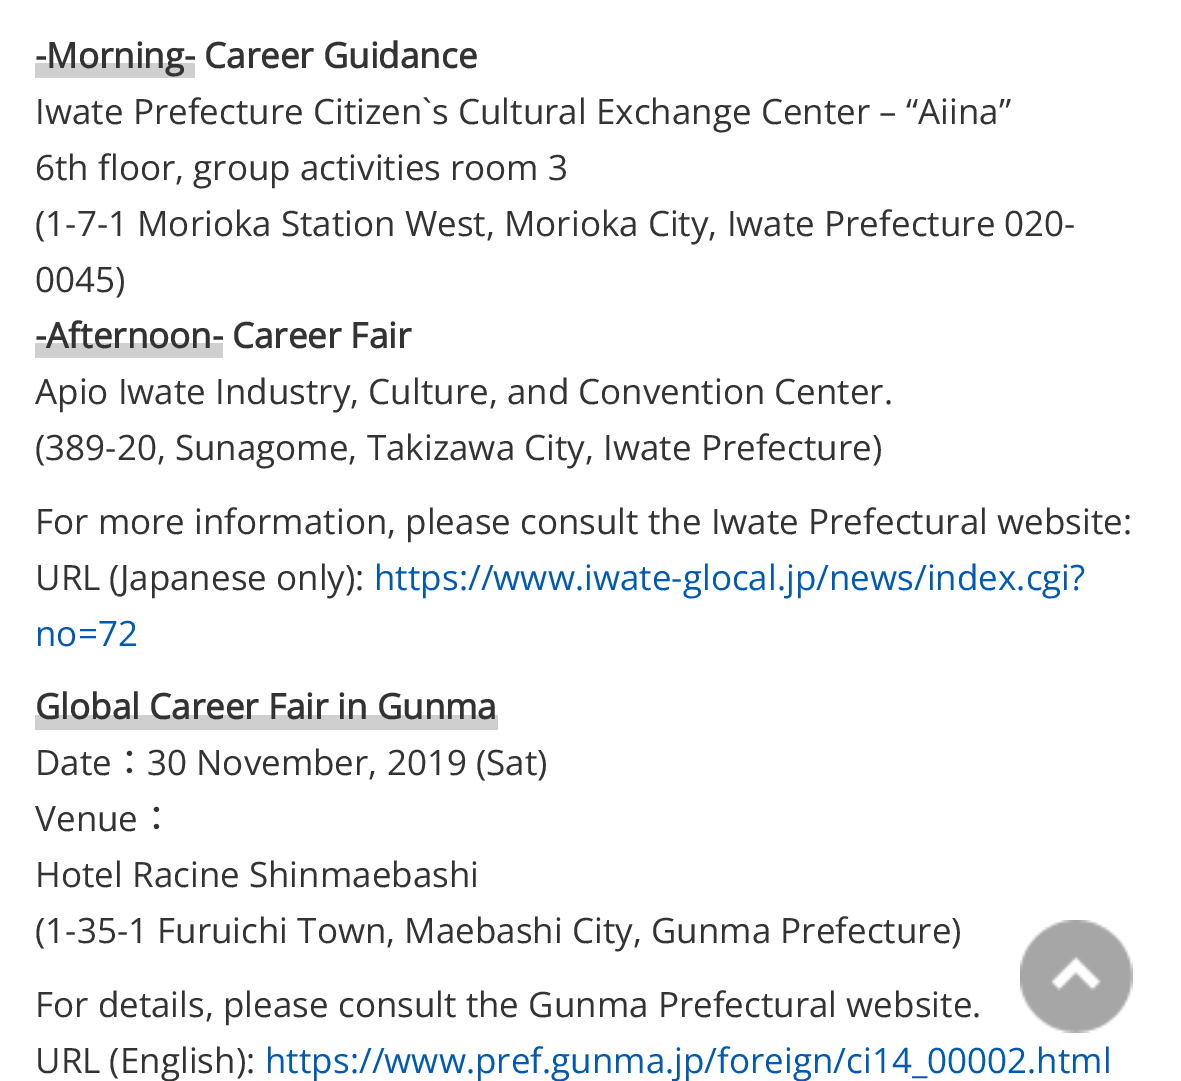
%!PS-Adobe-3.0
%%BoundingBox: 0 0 1181 1081
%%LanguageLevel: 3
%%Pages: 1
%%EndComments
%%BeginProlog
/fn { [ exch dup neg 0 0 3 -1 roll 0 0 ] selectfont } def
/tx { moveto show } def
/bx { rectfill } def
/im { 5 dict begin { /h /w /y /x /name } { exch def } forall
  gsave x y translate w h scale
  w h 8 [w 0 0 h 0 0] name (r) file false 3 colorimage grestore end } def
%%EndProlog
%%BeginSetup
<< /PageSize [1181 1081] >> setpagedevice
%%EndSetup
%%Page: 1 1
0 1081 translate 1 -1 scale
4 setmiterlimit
1 setgray
0 0 1181 1081 bx
0.812 0.812 0.816 setrgbcolor
35 63 160 15 bx
/OpenSans-Bold 35 fn
0.2 setgray
(-Morning- Career Guidance) 35 68 tx
/OpenSans-Regular 35 fn
(Iwate Prefecture Citizen`s Cultural Exchange Center – “Aiina”) 35 124 tx
(6th floor, group activities room 3) 35 180 tx
(\(1-7-1 Morioka Station West, Morioka City, Iwate Prefecture 020-) 35 236 tx
(0045\)) 35 292 tx
0.812 0.812 0.816 setrgbcolor
35 343 188 15 bx
/OpenSans-Bold 35 fn
0.2 setgray
(-Afternoon- Career Fair) 35 348 tx
/OpenSans-Regular 35 fn
(Apio Iwate Industry, Culture, and Convention Center.) 35 404 tx
(\(389-20, Sunagome, Takizawa City, Iwate Prefecture\)) 35 460 tx
(For more information, please consult the Iwate Prefectural website:) 35 534 tx
(URL \(Japanese only\):) 35 590 tx
0 0.349 0.698 setrgbcolor
(https://www.iwate-glocal.jp/news/index.cgi?) 374 590 tx
(no=72) 35 646 tx
0.812 0.812 0.816 setrgbcolor
35 715 463 15 bx
/OpenSans-Bold 35 fn
0.2 setgray
(Global Career Fair in Gunma) 35 719 tx
/OpenSans-Regular 35 fn
(Date) 35 775 tx
/NotoSansJP-Regular 35 fn
(：) 112 775 tx
/OpenSans-Regular 35 fn
(30 November, 2019 \(Sat\)) 147 775 tx
(Venue) 35 831 tx
/NotoSansJP-Regular 35 fn
(：) 139 831 tx
/OpenSans-Regular 35 fn
(Hotel Racine Shinmaebashi) 35 887 tx
(\(1-35-1 Furuichi Town, Maebashi City, Gunma Prefecture\)) 35 943 tx
(For details, please consult the Gunma Prefectural website.) 35 1017 tx
(URL \(English\):) 35 1073 tx
0 0.349 0.698 setrgbcolor
(https://www.pref.gunma.jp/foreign/ci14_00002.html) 265 1073 tx
(image0.raw) 1020 920 113 113 im
showpage
%%EOF
